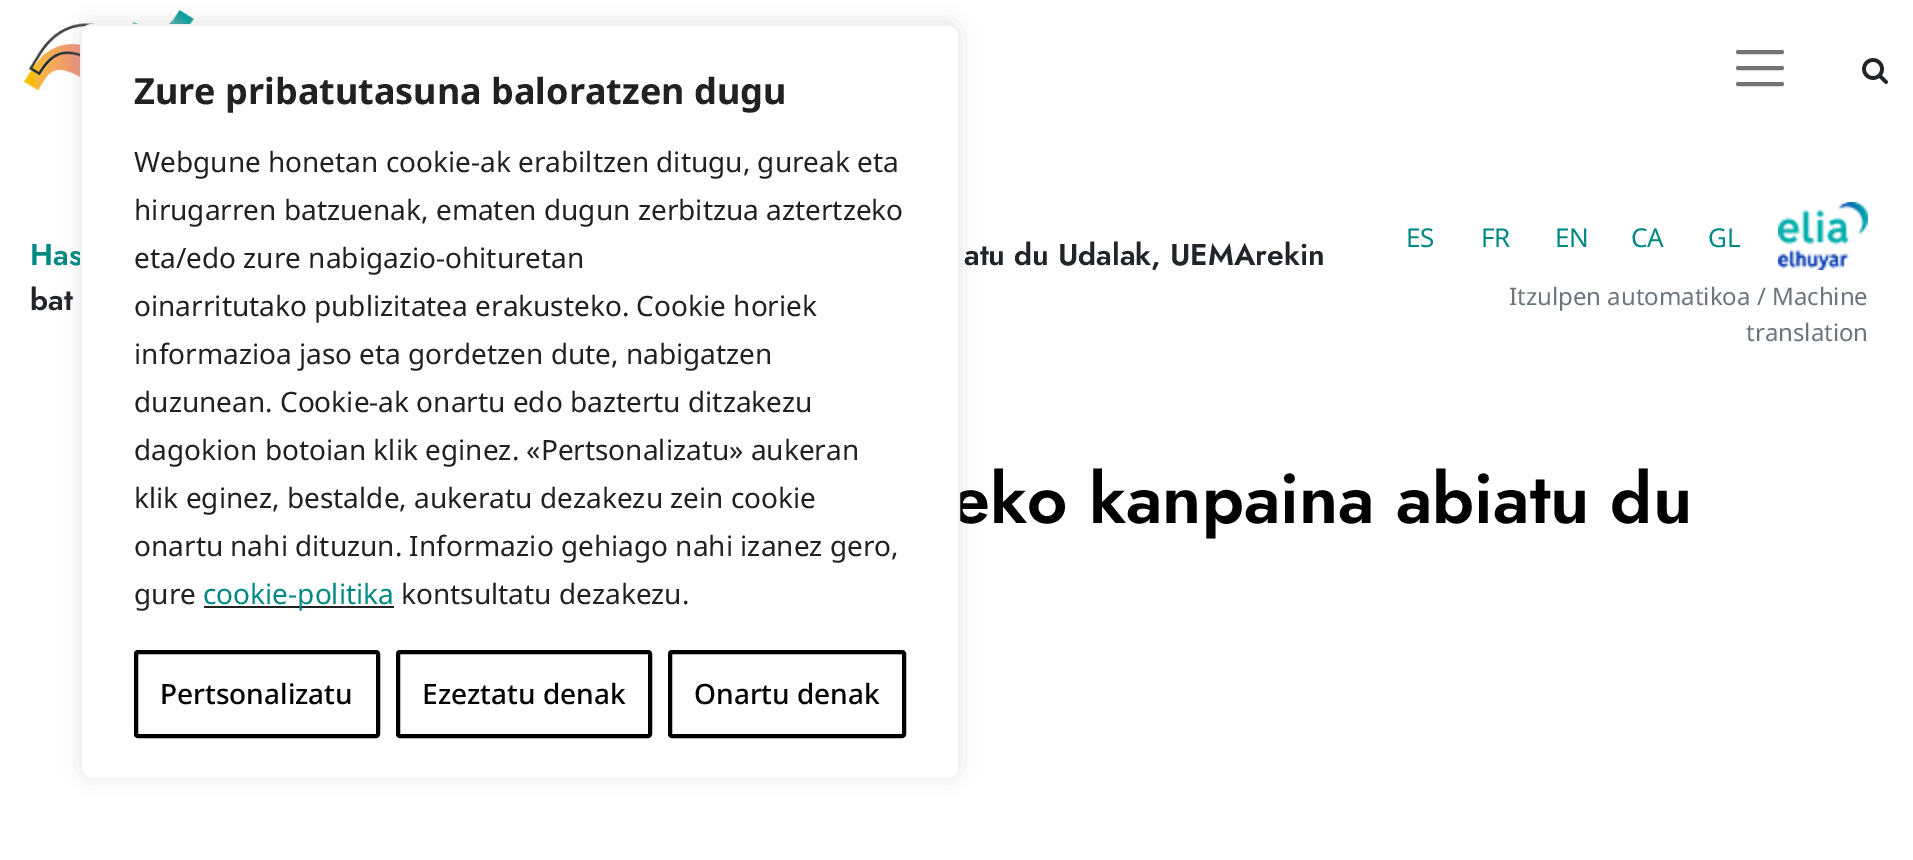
%!PS-Adobe-3.0
%%BoundingBox: 0 0 1913 860
%%LanguageLevel: 3
%%Pages: 1
%%EndComments
%%BeginProlog
/m { moveto } bind def
/l { lineto } bind def
/f { fill } bind def
/S { stroke } bind def
/q { gsave } bind def
/Q { grestore } bind def
/w { setlinewidth } bind def
/fn { [ exch dup neg 0 0 3 -1 roll 0 0 ] selectfont } def
/tx { moveto show } def
/bx { rectfill } def
/al { dup .setfillconstantalpha .setstrokeconstantalpha } def
/rr { 5 dict begin { /r /h /w /y /x } { exch def } forall
  x r add y moveto x w add y 2 copy h add r arct x w add y h add x 1 index r arct
  x y h add x y r arct x y 2 copy exch w add exch r arct closepath end } def
/sh { 12 dict begin { /a /b /q /h /w /y /x } { exch def } forall gsave /was 0 def
  9 -2 -9 { dup b mul 4 div /e exch def 1 sub .425 mul 2.718 exch exp 1 add a .99 .min exch div /now exch def
    1 1 now sub 1 was sub div sub al /was now def
    w h .min e 2 mul add 0 gt { x e sub y e sub w e 2 mul add h e 2 mul add
      q e add b .6 mul add w h .min 2 div e add .min 0 .max rr fill } if } for grestore end } def
/im { 5 dict begin { /h /w /y /x /name } { exch def } forall
  gsave x y translate w h scale
  w h 8 [w 0 0 h 0 0] name (r) file false 3 colorimage grestore end } def
%%EndProlog
%%BeginSetup
<< /PageSize [1913 860] /PageUsesTransparency true >> setpagedevice
%%EndSetup
%%Page: 1 1
0 .pushpdf14devicefilter
0 860 translate 1 -1 scale
4 setmiterlimit
1 setgray
0 0 1913 860 bx
(image0.raw) 24 10 170 81 im
0.675 0.671 0.671 setrgbcolor
80 22 880 756 12 10 0.3 sh
/Jost-SemiBold 30 fn
0 0.537 0.518 setrgbcolor
(Has) 30 265 tx
/Jost-SemiBold 70 fn
0 setgray
(eko kanpaina abiatu du) 951 523 tx
1 setgray
81 25 878 754 11 rr q f Q
0.957 setgray
2 w
S
/NotoSans-Bold 36 fn
0.129 setgray
(Zure pribatutasuna baloratzen dugu) 134 104 tx
/NotoSans-Regular 28 fn
(Webgune honetan cookie-ak erabiltzen ditugu, gureak eta) 134 172 tx
(hirugarren batzuenak, ematen dugun zerbitzua aztertzeko) 134 220 tx
(eta/edo zure nabigazio-ohituretan) 134 268 tx
(oinarritutako publizitatea erakusteko. Cookie horiek) 134 316 tx
(informazioa jaso eta gordetzen dute, nabigatzen) 134 364 tx
(duzunean. Cookie-ak onartu edo baztertu ditzakezu) 134 412 tx
(dagokion botoian klik eginez. «Pertsonalizatu» aukeran) 134 460 tx
(klik eginez, bestalde, aukeratu dezakezu zein cookie) 134 508 tx
(onartu nahi dituzun. Informazio gehiago nahi izanez gero,) 134 556 tx
(gure) 134 604 tx
204 606 190 2 bx
0 0.537 0.518 setrgbcolor
(cookie-politika) 203 604 tx
0.129 setgray
(kontsultatu dezakezu.) 401 604 tx
0 setgray
4 w
136 652 242 84 2 rr S
/NotoSans-Medium 28 fn
(Pertsonalizatu) 160 704 tx
398 652 252 84 2 rr S
(Ezeztatu denak) 422 704 tx
670 652 234 84 2 rr S
(Onartu denak) 694 704 tx
0.451 setgray
1 setlinecap
1738 52 m 1782 52 l 1738 68 m 1782 68 l 1738 84 m 1782 84 l S
(image1.raw) 1862 58 26 26 im
/Jost-SemiBold 30 fn
0.129 0.145 0.161 setrgbcolor
(atu du Udalak, UEMArekin) 964 265 tx
(bat) 30 310 tx
/NotoSans-Regular 26 fn
0 0.537 0.518 setrgbcolor
(ES) 1406 247 tx
(FR) 1481 247 tx
(EN) 1555 247 tx
(CA) 1631 247 tx
(GL) 1708 247 tx
(image2.raw) 1778 202 90 68 im
/NotoSans-Regular 24 fn
0.424 0.459 0.49 setrgbcolor
(Itzulpen automatikoa / Machine) 1509 305 tx
(translation) 1746 341 tx
.poppdf14devicefilter showpage
%%EOF
